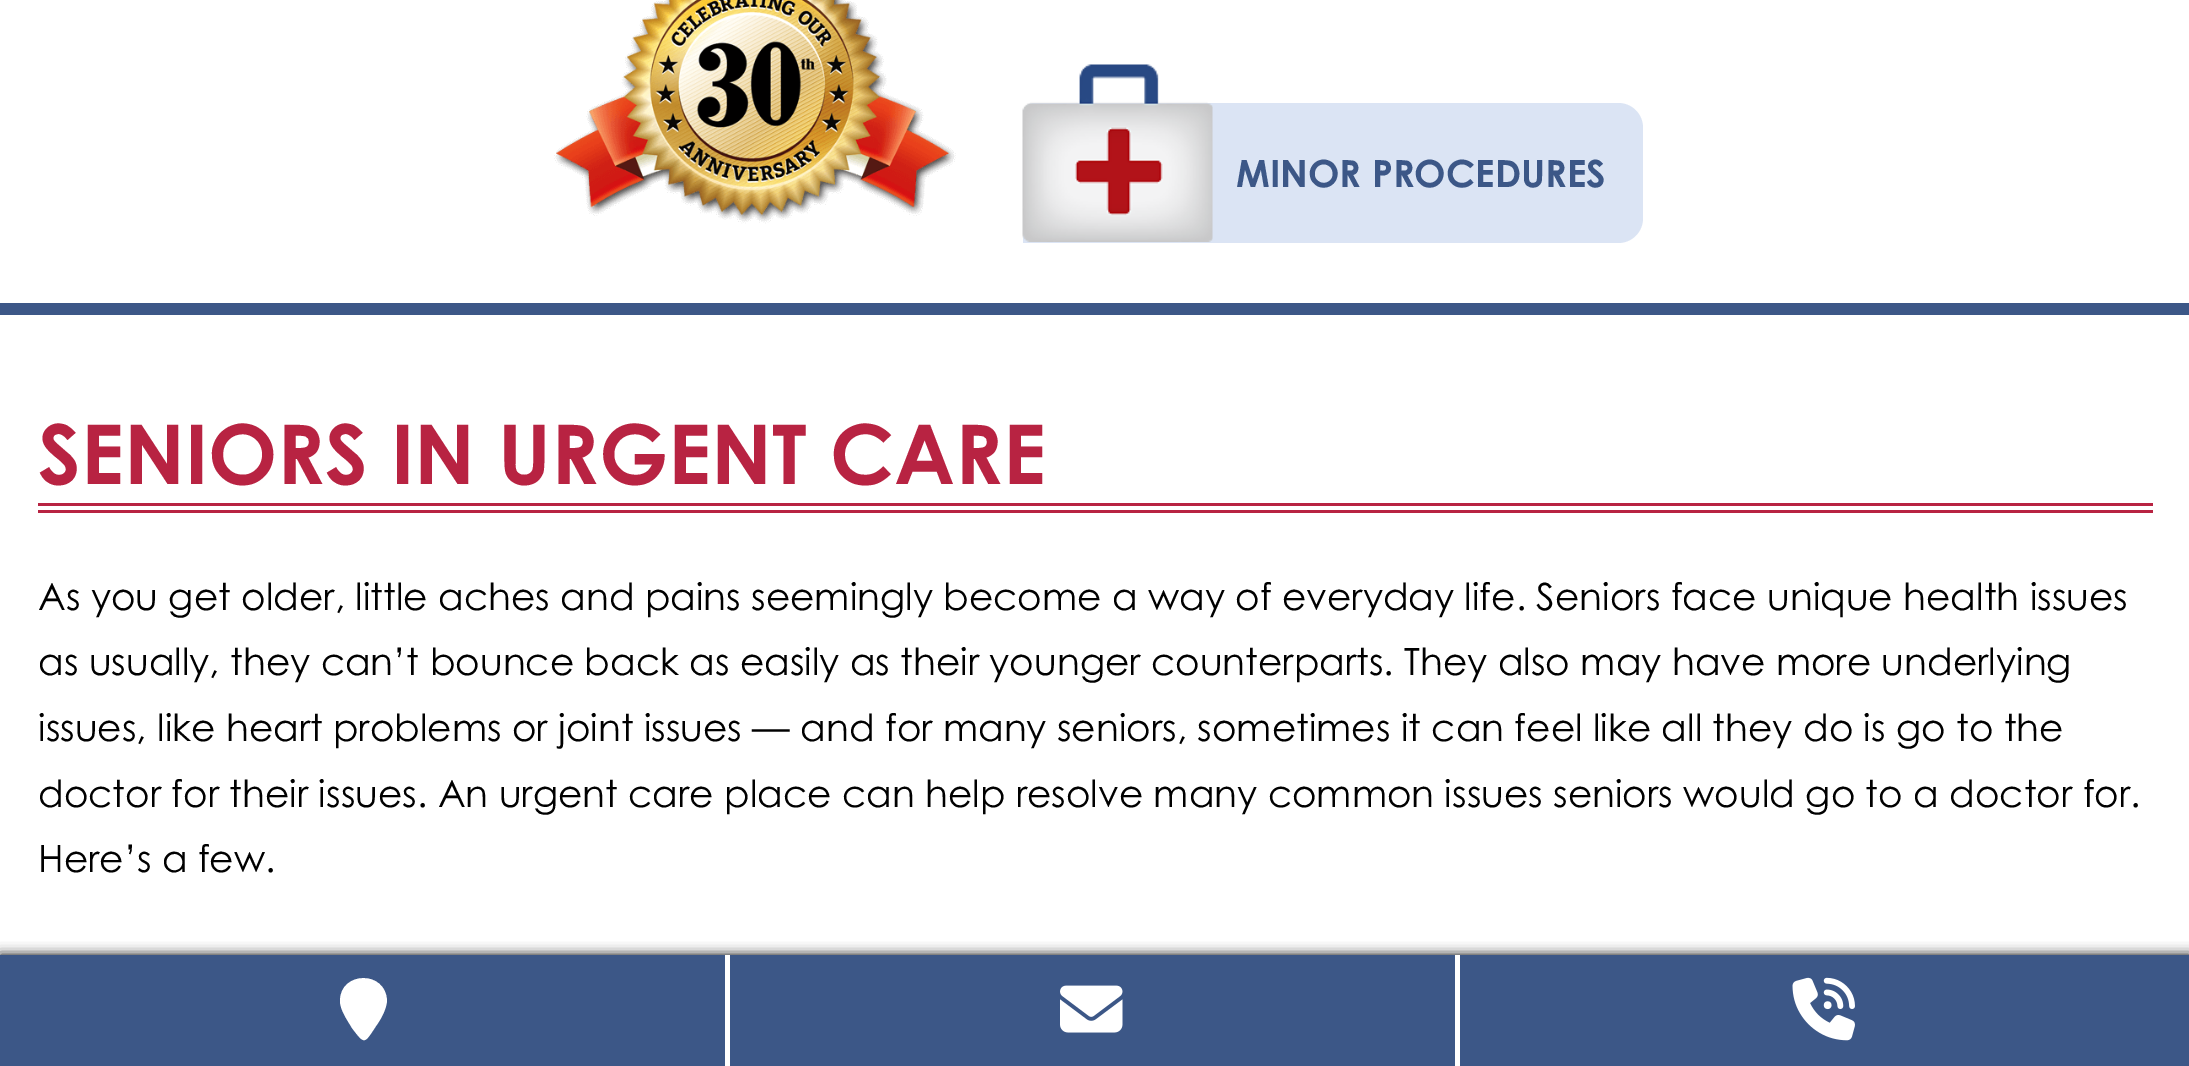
%!PS-Adobe-3.0
%%BoundingBox: 0 0 2189 1066
%%LanguageLevel: 3
%%Pages: 1
%%EndComments
%%BeginProlog
/m { moveto } bind def
/l { lineto } bind def
/c { curveto } bind def
/h { closepath } bind def
/f { fill } bind def
/fn { [ exch dup neg 0 0 3 -1 roll 0 0 ] selectfont } def
/tx { moveto show } def
/bx { rectfill } def
/al { dup .setfillconstantalpha .setstrokeconstantalpha } def
/rr { 5 dict begin { /r /h /w /y /x } { exch def } forall
  x r add y moveto x w add y 2 copy h add r arct x w add y h add x 1 index r arct
  x y h add x y r arct x y 2 copy exch w add exch r arct closepath end } def
/sh { 12 dict begin { /a /b /q /h /w /y /x } { exch def } forall gsave /was 0 def
  9 -2 -9 { dup b mul 4 div /e exch def 1 sub .425 mul 2.718 exch exp 1 add a .99 .min exch div /now exch def
    1 1 now sub 1 was sub div sub al /was now def
    w h .min e 2 mul add 0 gt { x e sub y e sub w e 2 mul add h e 2 mul add
      q e add b .6 mul add w h .min 2 div e add .min 0 .max rr fill } if } for grestore end } def
/im { 5 dict begin { /h /w /y /x /name } { exch def } forall
  gsave x y translate w h scale
  w h 8 [w 0 0 h 0 0] name (r) file false 3 colorimage grestore end } def
%%EndProlog
%%BeginSetup
<< /PageSize [2189 1066] /PageUsesTransparency true >> setpagedevice
%%EndSetup
%%Page: 1 1
0 .pushpdf14devicefilter
0 1066 translate 1 -1 scale
4 setmiterlimit
1 setgray
0 0 2189 1066 bx
(image0.raw) 554 0 402 224 im
0.859 0.894 0.957 setrgbcolor
1033 103 m 1618 103 l 1632 103 1643 114 1643 128 c 1643 218 l 1643 232 1632 243 1618 243 c 1023 243 l 1023 113 l 1023 107.5 1027.5 103 1033 103 c h f
(image1.raw) 1022 64 191 178 im
/CenturyGothic-Bold 37.5 fn
0.235 0.341 0.529 setrgbcolor
(MINOR PROCEDURES) 1236 187 tx
0 303 2189 12 bx
0.722 0.137 0.259 setrgbcolor
38 503 2115 3 bx
38 510 2115 3 bx
/CenturyGothic-Bold 82.5 fn
(SENIORS IN URGENT CARE) 38 484 tx
/CenturyGothic-Regular 37.5 fn
0 setgray
(As you get older, little aches and pains seemingly become a way of everyday life. Seniors face unique health issues) 38 610 tx
(as usually, they can’t bounce back as easily as their younger counterparts. They also may have more underlying) 38 675 tx
(issues, like heart problems or joint issues — and for many seniors, sometimes it can feel like all they do is go to the) 38 741 tx
(doctor for their issues. An urgent care place can help resolve many common issues seniors would go to a doctor for.) 38 807 tx
(Here’s a few.) 38 872 tx
0 955 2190 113 0 6 1 sh
0.235 0.341 0.529 setrgbcolor
0 955 2189 111 bx
1 setgray
725 955 5 111 bx
387 1001 m 386 1010 381 1019 376 1026 c 364 1044 365 1045 352 1028 c 348 1021 340 1010 340 1001 c 340 971 386 970 387 1001 c h f
1455 955 5 111 bx
(image2.raw) 1060 985 63 48 im
(image3.raw) 1792 977 63 64 im
.poppdf14devicefilter showpage
%%EOF
